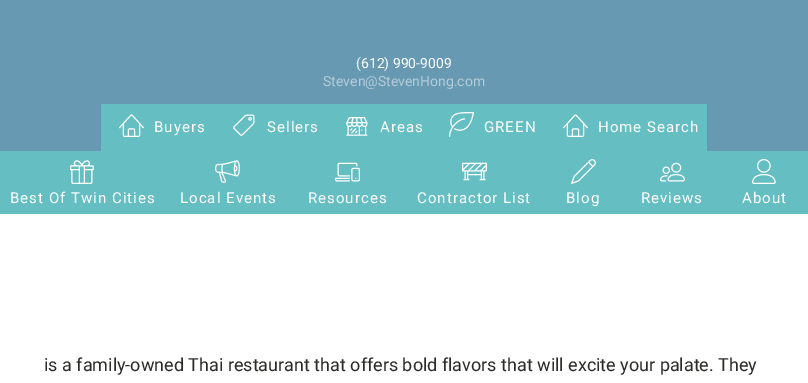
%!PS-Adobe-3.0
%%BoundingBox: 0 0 808 383
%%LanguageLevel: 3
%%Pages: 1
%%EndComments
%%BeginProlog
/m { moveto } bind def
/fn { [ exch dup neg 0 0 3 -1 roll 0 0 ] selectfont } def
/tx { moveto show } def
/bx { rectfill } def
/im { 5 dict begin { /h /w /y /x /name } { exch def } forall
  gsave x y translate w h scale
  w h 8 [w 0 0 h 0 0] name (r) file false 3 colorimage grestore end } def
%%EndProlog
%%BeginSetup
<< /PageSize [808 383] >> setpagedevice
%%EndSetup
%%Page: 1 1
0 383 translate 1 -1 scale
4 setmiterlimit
1 setgray
0 0 808 383 bx
0.404 0.6 0.698 setrgbcolor
0 0 808 151 bx
/Roboto-Regular 14 fn
1 setgray
(\(612\) 990-9009) 356 68 tx
0.702 0.8 0.851 setrgbcolor
(Steven@StevenHong.com) 323 86 tx
0.396 0.745 0.761 setrgbcolor
101 104 606 47 bx
(image0.raw) 119 114 25 23 im
/Roboto-Regular 15 fn
1 setgray
154 132 m 1 0 (Buyers) ashow
(image1.raw) 233 114 22 22 im
267 132 m 1 0 (Sellers) ashow
(image2.raw) 346 117 22 19 im
380 132 m 1 0 (Areas) ashow
(image3.raw) 449 112 25 25 im
484 132 m 1 0 (GREEN) ashow
(image0.raw) 563 114 25 23 im
598 132 m 1 0 (Home Search) ashow
0.396 0.745 0.761 setrgbcolor
0 151 808 63 bx
(image4.raw) 70 160 24 24 im
1 setgray
10 203 m 1 0 (Best Of Twin Cities) ashow
(image5.raw) 215 160 25 23 im
180 203 m 1 0 (Local Events) ashow
(image6.raw) 335 162 25 20 im
308 203 m 1 0 (Resources) ashow
(image7.raw) 462 162 25 19 im
417 203 m 1 0 (Contractor List) ashow
(image8.raw) 571 159 25 25 im
566 203 m 1 0 (Blog) ashow
(image9.raw) 660 162 25 20 im
641 203 m 1 0 (Reviews) ashow
(image10.raw) 752 159 24 25 im
742 203 m 1 0 (About) ashow
/Roboto-Regular 18 fn
0.169 0.173 0.157 setrgbcolor
(is a family-owned Thai restaurant that offers bold flavors that will excite your palate. They) 44 371 tx
showpage
%%EOF
